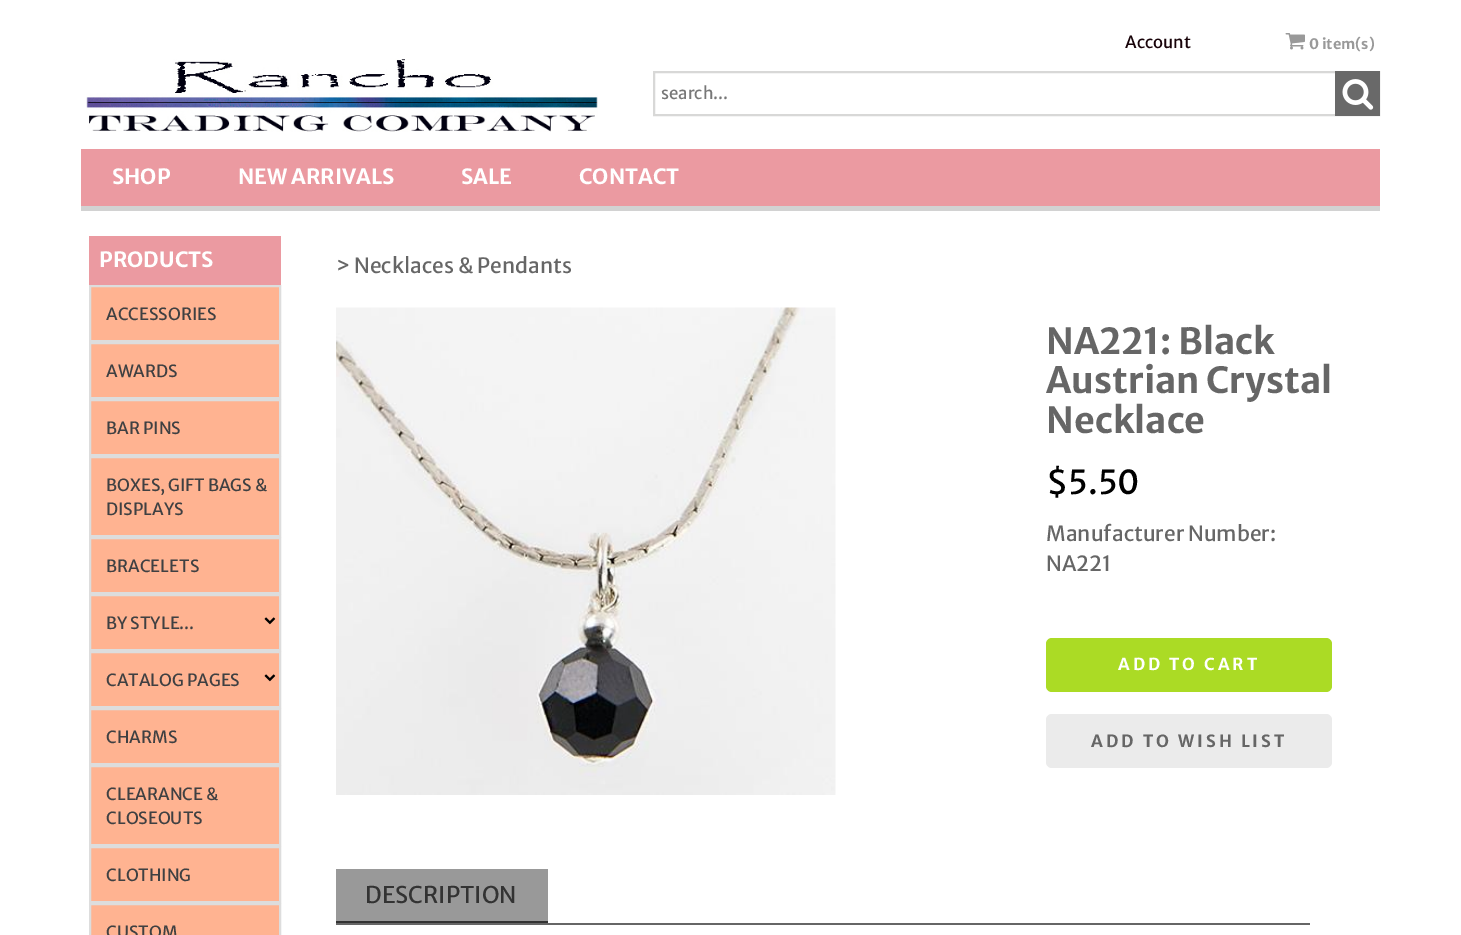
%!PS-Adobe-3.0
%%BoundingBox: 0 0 1461 935
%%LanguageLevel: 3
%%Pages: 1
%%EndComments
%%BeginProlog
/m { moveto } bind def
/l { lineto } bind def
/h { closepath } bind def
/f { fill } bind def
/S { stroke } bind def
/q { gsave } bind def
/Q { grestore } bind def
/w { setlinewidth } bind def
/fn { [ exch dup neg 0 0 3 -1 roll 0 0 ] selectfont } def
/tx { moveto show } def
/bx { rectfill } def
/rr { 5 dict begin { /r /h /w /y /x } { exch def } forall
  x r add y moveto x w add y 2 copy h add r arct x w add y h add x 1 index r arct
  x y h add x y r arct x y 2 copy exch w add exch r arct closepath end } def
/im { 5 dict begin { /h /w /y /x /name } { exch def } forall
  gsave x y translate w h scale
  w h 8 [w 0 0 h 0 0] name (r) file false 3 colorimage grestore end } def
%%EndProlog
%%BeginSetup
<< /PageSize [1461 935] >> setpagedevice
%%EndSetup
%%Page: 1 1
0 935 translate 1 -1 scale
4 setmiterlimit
1 setgray
0 0 1461 935 bx
/MerriweatherSans-Regular 16.75 fn
0.094 0.012 0.035 setrgbcolor
(Account) 1125 48 tx
(image0.raw) 1285 33 20 17 im
/MerriweatherSans-Bold 14.5 fn
0.6 setgray
(0 item\(s\)) 1309 49 tx
(image1.raw) 86 59 512 73 im
0.847 0.847 0.843 setrgbcolor
2 w
654 72 725 43 rectstroke
/MerriweatherSans-Regular 16.75 fn
0.467 setgray
(search...) 661 99 tx
0.412 setgray
1335 71 45 45 bx
(image2.raw) 1342 79 32 31 im
0.922 0.604 0.631 setrgbcolor
81 149 1299 57 bx
0.824 setgray
81 206 1299 5 bx
/MerriweatherSans-Bold 21 fn
1 setgray
(SHOP) 112 184 tx
(NEW ARRIVALS) 238 184 tx
(SALE) 461 184 tx
(CONTACT) 579 184 tx
0.922 0.604 0.631 setrgbcolor
89 236 192 49 bx
1 setgray
(PRODUCTS) 99 267 tx
1 0.702 0.569 setrgbcolor
90 286 m 280 286 l 280 341 l 90 341 l h q f Q
0.867 setgray
S
/MerriweatherSans-Regular 16.75 fn
0.247 0.251 0.259 setrgbcolor
(ACCESSORIES) 106 320 tx
1 0.702 0.569 setrgbcolor
90 343 m 280 343 l 280 398 l 90 398 l h q f Q
0.867 setgray
S
0.247 0.251 0.259 setrgbcolor
(AWARDS) 106 377 tx
1 0.702 0.569 setrgbcolor
90 400 m 280 400 l 280 455 l 90 455 l h q f Q
0.867 setgray
S
0.247 0.251 0.259 setrgbcolor
(BAR PINS) 106 434 tx
1 0.702 0.569 setrgbcolor
90 457 m 280 457 l 280 536 l 90 536 l h q f Q
0.867 setgray
S
0.247 0.251 0.259 setrgbcolor
(BOXES, GIFT BAGS &) 106 491 tx
(DISPLAYS) 106 515 tx
1 0.702 0.569 setrgbcolor
90 538 m 280 538 l 280 593 l 90 593 l h q f Q
0.867 setgray
S
0.247 0.251 0.259 setrgbcolor
(BRACELETS) 106 572 tx
1 0.702 0.569 setrgbcolor
90 595 m 280 595 l 280 650 l 90 650 l h q f Q
0.867 setgray
S
0.247 0.251 0.259 setrgbcolor
(BY STYLE...) 106 629 tx
(image3.raw) 264 617 12 8 im
1 0.702 0.569 setrgbcolor
90 652 m 280 652 l 280 707 l 90 707 l h q f Q
0.867 setgray
S
0.247 0.251 0.259 setrgbcolor
(CATALOG PAGES) 106 686 tx
(image3.raw) 264 674 12 8 im
1 0.702 0.569 setrgbcolor
90 709 m 280 709 l 280 764 l 90 764 l h q f Q
0.867 setgray
S
0.247 0.251 0.259 setrgbcolor
(CHARMS) 106 743 tx
1 0.702 0.569 setrgbcolor
90 766 m 280 766 l 280 845 l 90 845 l h q f Q
0.867 setgray
S
0.247 0.251 0.259 setrgbcolor
(CLEARANCE &) 106 800 tx
(CLOSEOUTS) 106 824 tx
1 0.702 0.569 setrgbcolor
90 847 m 280 847 l 280 902 l 90 902 l h q f Q
0.867 setgray
S
0.247 0.251 0.259 setrgbcolor
(CLOTHING) 106 881 tx
1 0.702 0.569 setrgbcolor
90 904 m 280 904 l 280 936 l 90 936 l h q f Q
0.867 setgray
S
0.247 0.251 0.259 setrgbcolor
(CUSTOM) 106 938 tx
/MerriweatherSans-Regular 21 fn
0.4 setgray
(> Necklaces & Pendants) 336 273 tx
(image4.raw) 336 307 500 488 im
/MerriweatherSans-Bold 36 fn
(NA221: Black) 1046 354 tx
(Austrian Crystal) 1046 393 tx
(Necklace) 1046 433 tx
/MerriweatherSans-Regular 33 fn
0 setgray
($5.50) 1046 494 tx
/MerriweatherSans-Regular 21 fn
0.4 setgray
(Manufacturer Number:) 1046 541 tx
(NA221) 1046 571 tx
0.671 0.859 0.145 setrgbcolor
1046 638 286 54 6 rr f
/MerriweatherSans-Bold 16.5 fn
1 setgray
1118 670 m 3 0 (ADD TO CART) ashow
0.922 setgray
1046 714 286 54 6 rr f
/MerriweatherSans-Bold 16.75 fn
0.4 setgray
1091 747 m 3 0 (ADD TO WISH LIST) ashow
336 923 974 2 bx
0.6 setgray
336 869 212 52 bx
0.2 setgray
336 921 212 2 bx
/MerriweatherSans-Regular 23 fn
(DESCRIPTION) 365 903 tx
showpage
%%EOF
